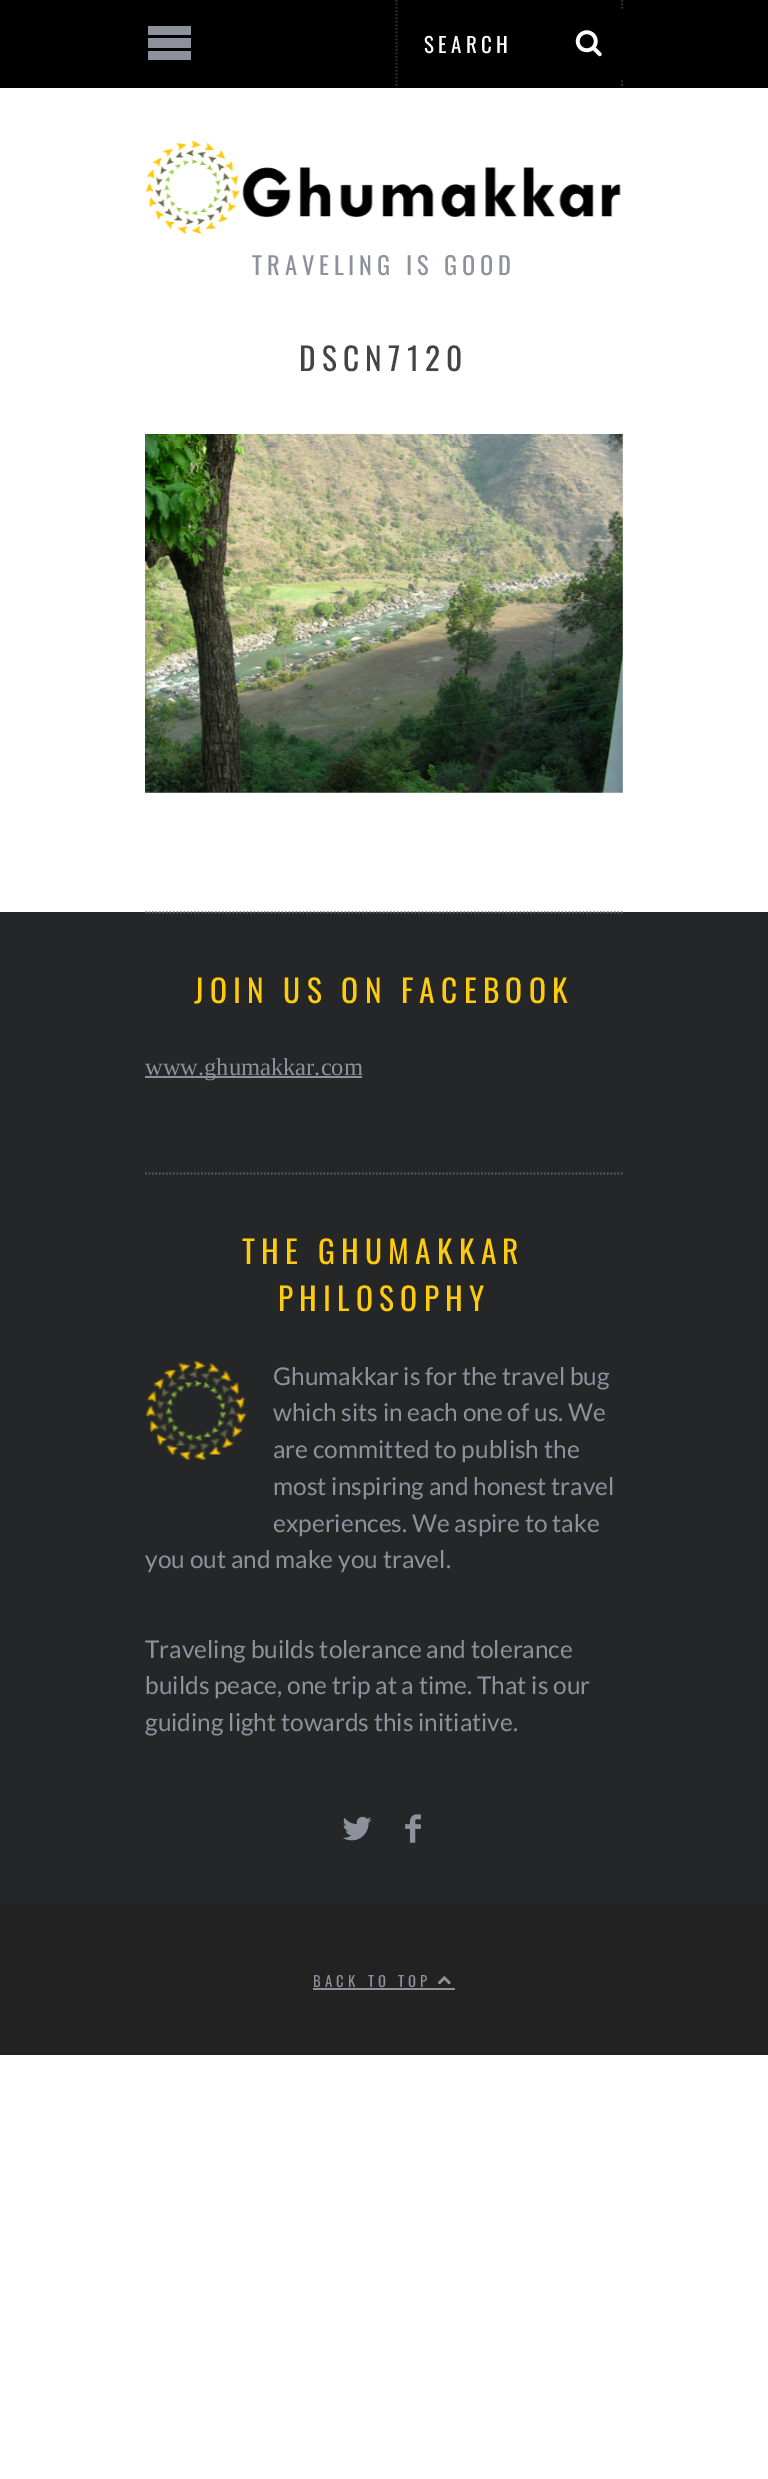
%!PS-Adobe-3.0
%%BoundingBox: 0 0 768 2479
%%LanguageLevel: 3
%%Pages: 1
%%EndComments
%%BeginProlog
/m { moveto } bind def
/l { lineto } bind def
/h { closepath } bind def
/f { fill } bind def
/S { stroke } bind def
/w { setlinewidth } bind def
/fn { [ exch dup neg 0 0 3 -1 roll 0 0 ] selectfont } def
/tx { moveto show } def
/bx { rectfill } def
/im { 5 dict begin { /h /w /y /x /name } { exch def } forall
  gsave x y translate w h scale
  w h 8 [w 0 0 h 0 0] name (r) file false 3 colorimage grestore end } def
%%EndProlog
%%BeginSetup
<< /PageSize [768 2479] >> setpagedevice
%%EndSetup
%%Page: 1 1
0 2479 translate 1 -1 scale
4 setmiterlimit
1 setgray
0 0 768 2479 bx
0 setgray
0 0 768 88 bx
0.549 0.569 0.608 setrgbcolor
148 26 m 191 26 l 191 35 l 148 35 l h 148 38 m 191 38 l 191 48 l 148 48 l h 148 51 m 191 51 l 191 60 l 148 60 l h f
0.2 setgray
1.8 w
[1.75 1.75] 0 setdash
622 0 m 622 87.5 l S
396.5 0 m 396.5 87.5 l S
/Oswald-Regular 21 fn
1 setgray
424 53 m 4.25 0 (SEARCH) ashow
0 setgray
621 10 2 69 bx
(image0.raw) 575 30 27 27 im
(image1.raw) 145 140 476 94 im
/Oswald-Regular 24.5 fn
0.549 0.569 0.608 setrgbcolor
252 275 m 4.9 0 (TRAVELING IS GOOD) ashow
/Oswald-Regular 31.5 fn
0.267 setgray
299 371 m 6.25 0 (DSCN7120) ashow
(image2.raw) 145 434 478 359 im
0.141 0.149 0.157 setrgbcolor
0 912 768 992 bx
0.345 0.357 0.38 setrgbcolor
145 912.5 m 623 912.5 l S
1 0.8 0.051 setrgbcolor
194 1003 m 6.25 0 (JOIN US ON FACEBOOK) ashow
0.549 0.569 0.608 setrgbcolor
145 1076 217 2 bx
/LiberationSerif-Regular 24.5 fn
(www.ghumakkar.com) 145 1075 tx
0.345 0.357 0.38 setrgbcolor
145 1173.5 m 623 1173.5 l S
/Oswald-Regular 31.5 fn
1 0.8 0.051 setrgbcolor
242 1264 m 6.25 0 (THE GHUMAKKAR) ashow
278 1311 m 6.25 0 (PHILOSOPHY) ashow
(image3.raw) 145 1360 102 101 im
/Lato-Regular 24.5 fn
0.549 0.569 0.608 setrgbcolor
(Ghumakkar is for the travel bug) 273 1385 tx
(which sits in each one of us. We) 273 1421 tx
(are committed to publish the) 273 1458 tx
(most inspiring and honest travel) 273 1495 tx
(experiences. We aspire to take) 273 1532 tx
(you out and make you travel.) 145 1568 tx
(Traveling builds tolerance and tolerance) 145 1658 tx
(builds peace, one trip at a time. That is our) 145 1694 tx
(guiding light towards this initiative.) 145 1731 tx
(image4.raw) 342 1816 30 25 im
(image5.raw) 405 1814 16 29 im
0.133 setgray
0 1904 768 151 bx
/Oswald-Regular 14.75 fn
0.549 0.569 0.608 setrgbcolor
313 1987 m 4.25 0 (BACK TO TOP) ashow
313 1988 142 2 bx
(image6.raw) 438 1976 13 9 im
showpage
%%EOF
